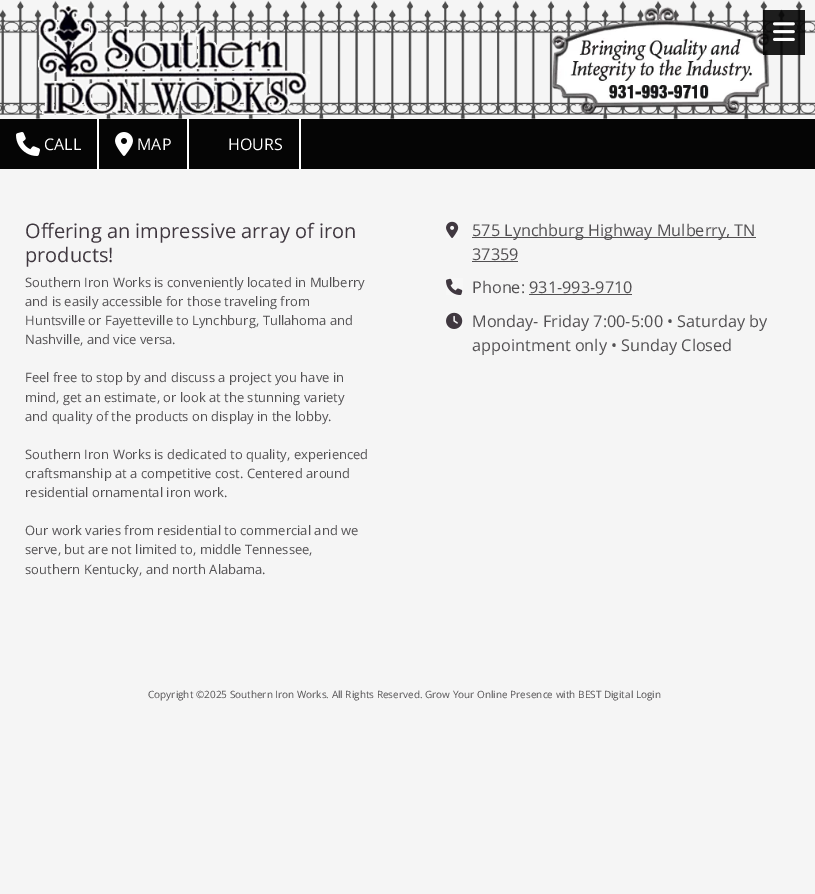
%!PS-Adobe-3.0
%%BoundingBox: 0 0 815 894
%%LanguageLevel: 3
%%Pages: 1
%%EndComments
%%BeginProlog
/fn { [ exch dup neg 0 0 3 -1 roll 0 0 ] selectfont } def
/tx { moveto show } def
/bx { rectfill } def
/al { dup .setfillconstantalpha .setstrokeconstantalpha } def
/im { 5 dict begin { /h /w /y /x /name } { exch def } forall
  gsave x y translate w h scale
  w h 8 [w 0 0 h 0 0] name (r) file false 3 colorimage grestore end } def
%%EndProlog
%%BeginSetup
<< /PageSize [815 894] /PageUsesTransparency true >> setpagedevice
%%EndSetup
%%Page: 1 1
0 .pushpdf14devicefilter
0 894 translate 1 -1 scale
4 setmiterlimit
0.961 setgray
0 0 815 894 bx
(image0.raw) 0 0 815 119 im
0.9 al
0.02 setgray
763 10 42 45 bx
1 al
(image1.raw) 773 22 22 19 im
0 119 815 50 bx
1 setgray
97 119 2 50 bx
(image2.raw) 16 132 24 24 im
/OpenSans-Regular 16 fn
(CALL) 44 150 tx
187 119 2 50 bx
(image3.raw) 115 132 18 24 im
(MAP) 137 150 tx
299 119 2 50 bx
(HOURS) 228 150 tx
/OpenSans-Regular 20 fn
0.251 0.22 0.251 setrgbcolor
(Offering an impressive array of iron) 25 238 tx
(products!) 25 262 tx
/OpenSans-Regular 13 fn
0.322 0.314 0.322 setrgbcolor
(Southern Iron Works is conveniently located in Mulberry) 25 287 tx
(and is easily accessible for those traveling from) 25 306 tx
(Huntsville or Fayetteville to Lynchburg, Tullahoma and) 25 325 tx
(Nashville, and vice versa.) 25 344 tx
(Feel free to stop by and discuss a project you have in) 25 382 tx
(mind, get an estimate, or look at the stunning variety) 25 402 tx
(and quality of the products on display in the lobby.) 25 421 tx
(Southern Iron Works is dedicated to quality, experienced) 25 459 tx
(craftsmanship at a competitive cost. Centered around) 25 478 tx
(residential ornamental iron work.) 25 497 tx
(Our work varies from residential to commercial and we) 25 535 tx
(serve, but are not limited to, middle Tennessee,) 25 554 tx
(southern Kentucky, and north Alabama.) 25 574 tx
(image4.raw) 446 221 13 17 im
472 237 284 1 bx
/OpenSans-Regular 16.25 fn
(575 Lynchburg Highway Mulberry, TN) 472 236 tx
(37359) 472 260 tx
472 261 46 1 bx
(image5.raw) 446 278 17 17 im
(Phone: 931-993-9710) 472 293 tx
529 294 103 1 bx
(image6.raw) 446 312 17 17 im
(Monday- Friday 7:00-5:00 • Saturday by) 472 327 tx
(appointment only • Sunday Closed) 472 351 tx
/OpenSans-Regular 10 fn
(Copyright ©2025 Southern Iron Works. All Rights Reserved. Grow Your Online Presence with BEST Digital Login) 148 698 tx
.poppdf14devicefilter showpage
%%EOF
